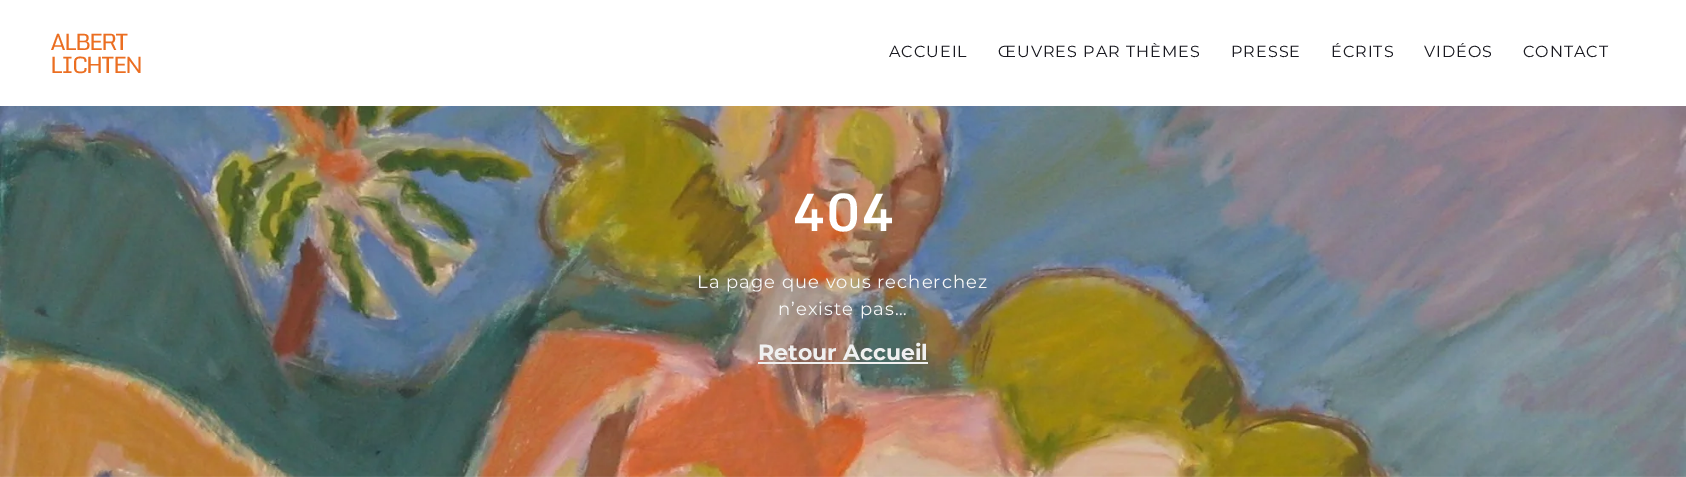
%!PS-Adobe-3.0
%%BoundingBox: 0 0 1686 477
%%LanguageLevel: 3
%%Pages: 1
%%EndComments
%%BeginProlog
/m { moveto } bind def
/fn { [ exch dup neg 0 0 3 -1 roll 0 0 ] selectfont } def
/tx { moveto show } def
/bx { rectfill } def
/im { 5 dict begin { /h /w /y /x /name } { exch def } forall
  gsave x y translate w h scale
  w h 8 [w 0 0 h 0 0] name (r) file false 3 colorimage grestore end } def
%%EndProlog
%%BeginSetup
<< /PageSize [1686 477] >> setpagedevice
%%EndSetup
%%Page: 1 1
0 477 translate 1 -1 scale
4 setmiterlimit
1 setgray
0 0 1686 477 bx
/Monda-Regular 23 fn
0.922 0.431 0.129 setrgbcolor
50 50 m -2 0 (ALBERT) ashow
50 73 m -2 0 (LICHTEN) ashow
/Montserrat-Regular 16 fn
0.098 0.098 0.125 setrgbcolor
889 57 m 1 0 (ACCUEIL) ashow
998 57 m 1 0 (ŒUVRES PAR THÈMES) ashow
1231 57 m 1 0 (PRESSE) ashow
1331 57 m 1 0 (ÉCRITS) ashow
1424 57 m 1 0 (VIDÉOS) ashow
1523 57 m 1 0 (CONTACT) ashow
(image0.raw) 0 106 1686 371 im
/Monda-SemiBold 52 fn
1 setgray
(404) 791 231 tx
/Montserrat-Regular 18 fn
0.969 setgray
697 288 m 1 0 (La page que vous recherchez) ashow
778 315 m 1 0 (n’existe pas…) ashow
/Montserrat-Bold 22 fn
0.941 setgray
(Retour Accueil) 758 360 tx
758 362 170 2 bx
showpage
%%EOF
